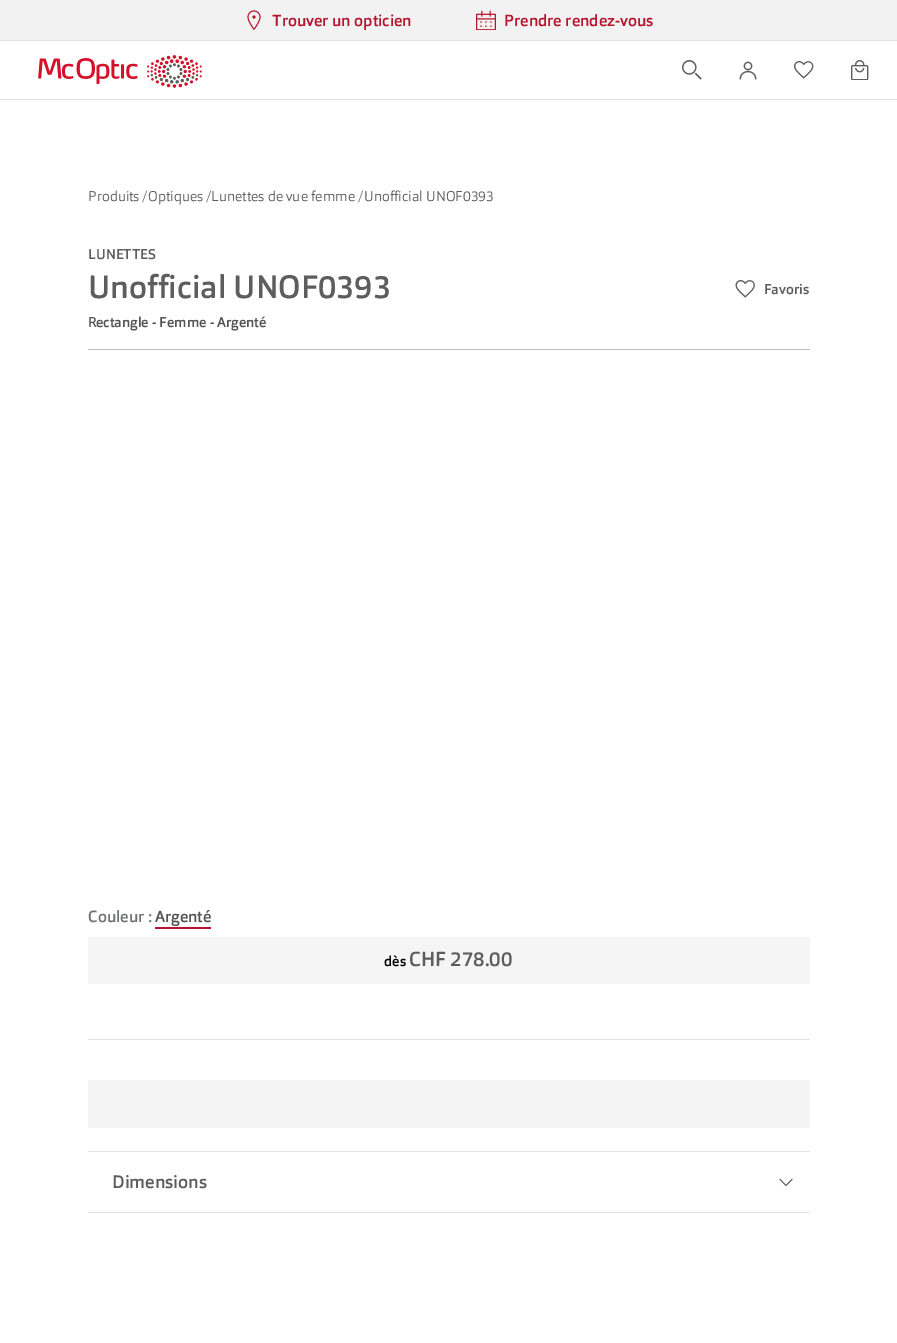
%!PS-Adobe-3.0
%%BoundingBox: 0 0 897 1343
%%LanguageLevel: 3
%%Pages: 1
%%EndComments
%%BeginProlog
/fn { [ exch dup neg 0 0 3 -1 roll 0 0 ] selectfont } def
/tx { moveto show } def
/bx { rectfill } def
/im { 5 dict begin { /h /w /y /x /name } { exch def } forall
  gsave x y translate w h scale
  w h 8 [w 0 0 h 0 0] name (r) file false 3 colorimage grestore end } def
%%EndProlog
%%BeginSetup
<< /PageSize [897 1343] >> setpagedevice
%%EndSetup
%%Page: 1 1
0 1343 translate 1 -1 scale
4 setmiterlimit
1 setgray
0 0 897 1343 bx
0.878 setgray
0 99 897 1 bx
0.949 setgray
0 0 897 40 bx
0.878 setgray
0 40 897 1 bx
(image0.raw) 247 10 14 20 im
/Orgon-Medium 16 fn
0.714 0.078 0.176 setrgbcolor
(Trouver un opticien) 272 26 tx
(image1.raw) 476 10 20 20 im
(Prendre rendez-vous) 504 26 tx
(image2.raw) 38 55 164 33 im
(image3.raw) 682 60 20 20 im
(image4.raw) 739 61 18 19 im
(image5.raw) 794 61 20 18 im
(image6.raw) 851 60 18 20 im
/Orgon-Light 14 fn
0.365 setgray
(Produits) 88 201 tx
0.443 0.451 0.455 setrgbcolor
(/) 142 201 tx
0.365 setgray
(Optiques) 148 201 tx
0.443 0.451 0.455 setrgbcolor
(/) 206 201 tx
0.365 setgray
(Lunettes de vue femme) 211 201 tx
0.443 0.451 0.455 setrgbcolor
(/) 358 201 tx
0.365 setgray
(Unofficial UNOF0393) 364 201 tx
0.741 setgray
88 349 722 1 bx
/Orgon-Medium 14 fn
0.365 setgray
(LUNETTES) 88 259 tx
/Orgon-Medium 32 fn
(Unofficial UNOF0393) 88 298 tx
/NotoSans-Medium 14 fn
0.329 0.325 0.325 setrgbcolor
(R) 88 327 tx
/Orgon-Medium 14 fn
(ectangle - Femme - Argenté) 96 327 tx
(image7.raw) 735 280 20 18 im
0.365 setgray
(Favoris) 764 294 tx
/Orgon-Medium 16 fn
0.443 0.451 0.455 setrgbcolor
(Couleur :) 88 922 tx
0.329 0.325 0.325 setrgbcolor
(Argenté) 155 922 tx
0.714 0.078 0.176 setrgbcolor
155 927 56 2 bx
0.878 setgray
88 1039 722 1 bx
0.961 setgray
88 937 722 47 bx
/Orgon-Medium 14 fn
0 setgray
(dès) 384 966 tx
/Orgon-Medium 20 fn
0.365 setgray
(CHF 278.00) 409 966 tx
0.957 setgray
88 1080 722 48 bx
0.89 0.89 0.886 setrgbcolor
88 1151 722 1 bx
88 1212 722 1 bx
/Orgon-Medium 18 fn
0.365 setgray
(Dimensions) 112 1188 tx
(image8.raw) 779 1178 14 8 im
showpage
%%EOF
